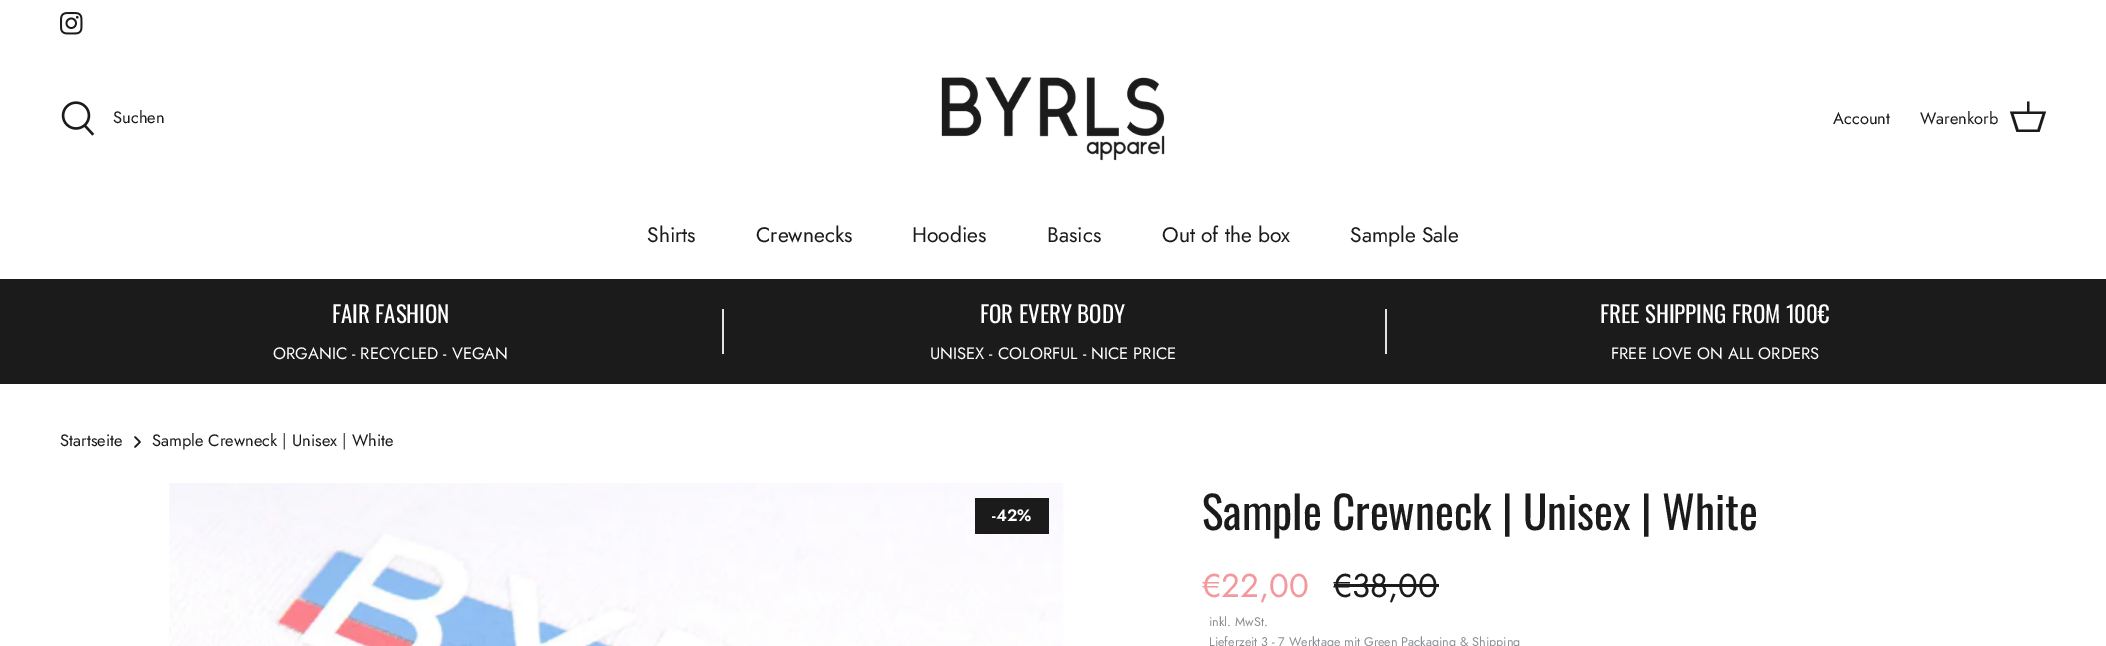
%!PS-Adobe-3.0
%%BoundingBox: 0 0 2106 646
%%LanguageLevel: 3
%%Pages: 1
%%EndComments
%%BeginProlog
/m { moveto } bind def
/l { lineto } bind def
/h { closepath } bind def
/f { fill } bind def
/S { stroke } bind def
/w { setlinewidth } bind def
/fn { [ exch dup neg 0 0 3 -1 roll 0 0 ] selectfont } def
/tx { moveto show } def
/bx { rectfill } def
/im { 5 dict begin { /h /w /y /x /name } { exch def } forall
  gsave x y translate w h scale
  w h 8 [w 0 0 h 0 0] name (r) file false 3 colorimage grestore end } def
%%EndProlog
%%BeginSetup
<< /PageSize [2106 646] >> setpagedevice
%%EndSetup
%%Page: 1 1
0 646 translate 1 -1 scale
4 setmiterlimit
1 setgray
0 0 2106 646 bx
(image0.raw) 60 12 23 23 im
(image1.raw) 61 101 34 35 im
/Jost-Regular 16.5 fn
0.11 0.106 0.106 setrgbcolor
(Suchen) 113 123 tx
(image2.raw) 941 77 224 84 im
(Account) 1833 124 tx
(Warenkorb) 1920 124 tx
2027 111.5 m 2027 101.5 l 2029.5 101.5 l 2029.5 111.5 l 2046 111.5 l 2039.5 132 l 2016.5 132 l 2010 111.5 l h 2013.5 114 m 2018.5 129.5 l 2037.5 129.5 l 2042.5 114 l h f
/Jost-Regular 21 fn
(Shirts) 647 242 tx
(Crewnecks) 756 242 tx
(Hoodies) 912 242 tx
(Basics) 1047 242 tx
(Out of the box) 1162 242 tx
(Sample Sale) 1350 242 tx
0 279 2106 105 bx
/Oswald-Regular 23 fn
1 setgray
(FAIR FASHION) 332 323 tx
/Jost-Regular 16.5 fn
(ORGANIC - RECYCLED - VEGAN) 273 359 tx
0.886 setgray
722 309 2 45 bx
/Oswald-Regular 23 fn
1 setgray
(FOR EVERY BODY) 980 323 tx
/Jost-Regular 16.5 fn
(UNISEX - COLORFUL - NICE PRICE) 930 359 tx
0.886 setgray
1385 309 2 45 bx
/Oswald-Regular 23 fn
1 setgray
(FREE SHIPPING FROM 100€) 1600 323 tx
/Jost-Regular 16.5 fn
(FREE LOVE ON ALL ORDERS) 1611 359 tx
0.11 0.106 0.106 setrgbcolor
(Startseite) 60 446 tx
1.6 w
1 setlinecap
1 setlinejoin
135 447 m 140 442 l 135 437 l S
(Sample Crewneck | Unisex | White) 152 446 tx
(image3.raw) 169 483 895 163 im
975 498 74 36 bx
/Jost-SemiBold 16.5 fn
1 setgray
(-42%) 992 521 tx
/Oswald-Regular 45 fn
0.11 0.106 0.106 setrgbcolor
(Sample Crewneck | Unisex | White) 1202 530 tx
/Jost-Regular 33 fn
0.961 0.596 0.616 setrgbcolor
(€22,00) 1202 597 tx
0.11 0.106 0.106 setrgbcolor
(€38,00) 1333 597 tx
1334 584 105 3 bx
/Jost-Regular 12.6 fn
0.541 0.561 0.576 setrgbcolor
(inkl. MwSt.) 1209 626 tx
(Lieferzeit 3 - 7 Werktage mit Green Packaging & Shipping) 1209 646 tx
showpage
%%EOF
